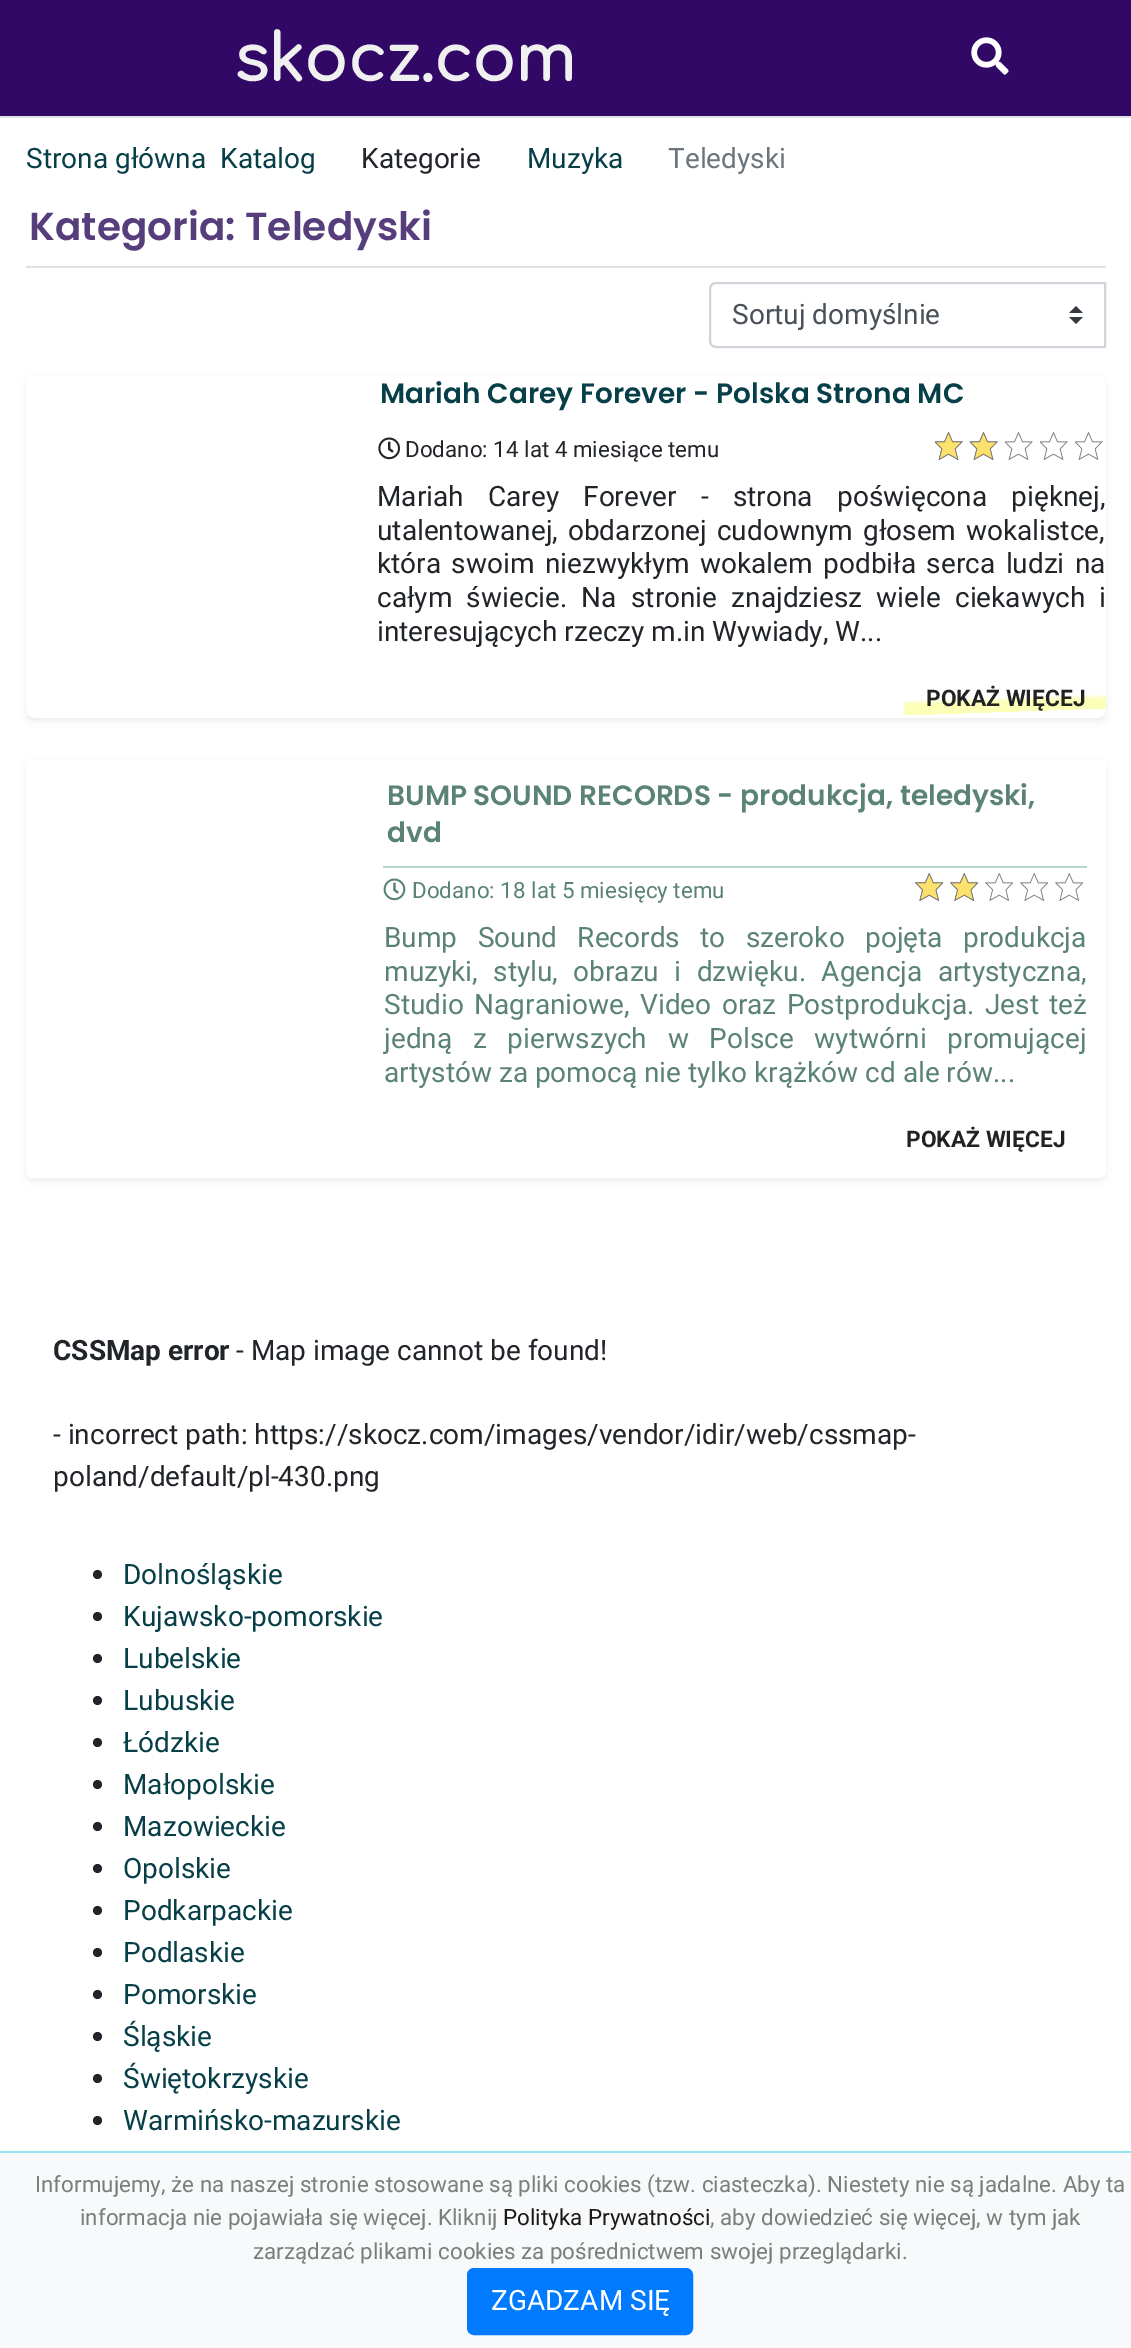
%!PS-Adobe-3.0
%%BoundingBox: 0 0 1131 2348
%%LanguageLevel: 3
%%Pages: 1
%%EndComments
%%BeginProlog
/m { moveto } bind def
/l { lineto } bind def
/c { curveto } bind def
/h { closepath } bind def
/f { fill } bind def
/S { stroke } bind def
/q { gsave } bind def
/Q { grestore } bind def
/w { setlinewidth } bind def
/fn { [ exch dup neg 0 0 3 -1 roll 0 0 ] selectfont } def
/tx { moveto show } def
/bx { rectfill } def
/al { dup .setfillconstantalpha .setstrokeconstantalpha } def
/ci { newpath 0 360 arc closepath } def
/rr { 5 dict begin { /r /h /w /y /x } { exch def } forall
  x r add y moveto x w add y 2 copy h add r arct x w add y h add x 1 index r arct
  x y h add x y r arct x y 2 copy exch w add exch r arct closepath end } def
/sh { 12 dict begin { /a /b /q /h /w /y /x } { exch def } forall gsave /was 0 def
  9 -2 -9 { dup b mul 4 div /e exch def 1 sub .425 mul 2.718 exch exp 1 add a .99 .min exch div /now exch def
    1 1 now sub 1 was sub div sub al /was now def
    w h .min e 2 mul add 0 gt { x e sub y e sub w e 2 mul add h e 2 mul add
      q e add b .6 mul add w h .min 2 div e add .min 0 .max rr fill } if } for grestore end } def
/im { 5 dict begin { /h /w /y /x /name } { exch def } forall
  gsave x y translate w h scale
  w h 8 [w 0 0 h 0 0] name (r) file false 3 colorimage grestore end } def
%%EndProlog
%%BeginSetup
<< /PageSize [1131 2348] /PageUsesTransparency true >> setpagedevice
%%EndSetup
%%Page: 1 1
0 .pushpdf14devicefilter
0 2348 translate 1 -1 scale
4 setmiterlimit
1 setgray
0 0 1131 2348 bx
0.196 0.031 0.4 setrgbcolor
0 0 1131 116 bx
0.871 0.886 0.902 setrgbcolor
0 116 1131 2 bx
/Comfortaa-Bold 66.5 fn
0.941 setgray
234 81 m -1.75 0 (skocz.com) ashow
(image0.raw) 971 37 38 38 im
/Roboto-Regular 28 fn
0.027 0.247 0.282 setrgbcolor
(Strona główna) 26 168 tx
(Katalog) 220 168 tx
0.129 0.145 0.161 setrgbcolor
(Kategorie) 361 168 tx
0.027 0.247 0.282 setrgbcolor
(Muzyka) 527 168 tx
0.424 0.459 0.49 setrgbcolor
(Teledyski) 668 168 tx
0.871 0.886 0.902 setrgbcolor
26 266 1080 2 bx
/Poppins-SemiBold 39.1 fn
0.337 0.239 0.486 setrgbcolor
(Kategoria: Teledyski) 29 240 tx
0.204 0.227 0.251 setrgbcolor
1076 306 m 1069 313 l 1083 313 l h 1076 324 m 1069 317 l 1083 317 l h f
0.808 0.831 0.855 setrgbcolor
2 w
716 283 m 1105 283 l 1105 347 l 716 347 l 712.5 347 710 344.5 710 341 c 710 289 l 710 285.5 712.5 283 716 283 c h S
/Roboto-Regular 28 fn
0.286 0.314 0.341 setrgbcolor
(Sortuj domyślnie) 732 324 tx
q
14 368 m 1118 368 l 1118 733 l 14 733 l h 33 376 m 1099 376 l 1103 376 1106 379 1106 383 c 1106 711 l 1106 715 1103 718 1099 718 c 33 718 l 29 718 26 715 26 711 c 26 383 l 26 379 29 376 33 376 c h eoclip newpath
0 setgray
26 380 1080 341 7 3.5 0.07 sh
Q
/Poppins-SemiBold 28 fn
0.027 0.247 0.282 setrgbcolor
(Mariah Carey Forever - Polska Strona MC) 380 403 tx
(image1.raw) 378 437 23 23 im
/Roboto-Regular 22.4 fn
0.129 0.145 0.161 setrgbcolor
(Dodano: 14 lat 4 miesiące temu) 405 457 tx
(image2.raw) 935 432 28 28 im
(image2.raw) 970 432 28 28 im
(image2.raw) 1005 432 28 28 im
(image2.raw) 1040 432 28 28 im
(image2.raw) 1075 432 28 28 im
(image3.raw) 935 432 28 28 im
(image3.raw) 970 432 28 28 im
/Roboto-Regular 28 fn
377 506 m 17.25 0 32 (Mariah Carey Forever - strona poświęcona pięknej,) widthshow
377 540 m 3 0 32 (utalentowanej, obdarzonej cudownym głosem wokalistce,) widthshow
377 573 m 3.5 0 32 (która swoim niezwykłym wokalem podbiła serca ludzi na) widthshow
377 607 m 7.25 0 32 (całym świecie. Na stronie znajdziesz wiele ciekawych i) widthshow
(interesujących rzeczy m.in Wywiady, W...) 377 641 tx
q 903 681 m 1105 674 l 1106 708 l 905 715 l h clip newpath
<< /ShadingType 2 /ColorSpace /DeviceRGB /Coords [1005 712 1004 678] /Extend [true true] /Function << /FunctionType 3 /Domain [0 1] /Functions [<< /FunctionType 2 /Domain [0 1] /C0 [0.984 1 0.722] /C1 [0.984 1 0.722] /N 1 >> << /FunctionType 2 /Domain [0 1] /C0 [0.984 1 0.722] /C1 [1 1 1] /N 1 >> << /FunctionType 2 /Domain [0 1] /C0 [1 1 1] /C1 [1 1 1] /N 1 >>] /Bounds [0.3 0.45] /Encode [0 1 0 1 0 1] >> >> shfill Q
/Roboto-Bold 22.75 fn
0.133 setgray
(POKAŻ WIĘCEJ) 926 706 tx
0 setgray
26 763 1080 418 7 3.5 0.07 sh
1 setgray
27 761 1078 416 6 rr q f Q
S
/Poppins-SemiBold 28 fn
0.357 0.514 0.459 setrgbcolor
(BUMP SOUND RECORDS - produkcja, teledyski,) 387 805 tx
(dvd) 387 842 tx
0.71 0.839 0.796 setrgbcolor
383 866 704 2 bx
(image4.raw) 383 878 23 23 im
/Roboto-Regular 22.4 fn
0.357 0.514 0.459 setrgbcolor
(Dodano: 18 lat 5 miesięcy temu) 412 898 tx
(image5.raw) 915 873 28 28 im
(image5.raw) 950 873 28 28 im
(image5.raw) 985 873 28 28 im
(image5.raw) 1020 873 28 28 im
(image5.raw) 1055 873 28 28 im
(image6.raw) 915 873 28 28 im
(image6.raw) 950 873 28 28 im
/Roboto-Regular 28 fn
384 947 m 13.5 0 32 (Bump Sound Records to szeroko pojęta produkcja) widthshow
384 981 m 8.5 0 32 (muzyki, stylu, obrazu i dzwięku. Agencja artystyczna,) widthshow
384 1014 m 3.5 0 32 (Studio Nagraniowe, Video oraz Postprodukcja. Jest też) widthshow
384 1048 m 13.75 0 32 (jedną z pierwszych w Polsce wytwórni promującej) widthshow
(artystów za pomocą nie tylko krążków cd ale rów...) 384 1082 tx
/Roboto-Bold 22.75 fn
0.133 setgray
(POKAŻ WIĘCEJ) 906 1147 tx
/Roboto-Bold 28 fn
0.129 0.145 0.161 setrgbcolor
(CSSMap error) 53 1360 tx
/Roboto-Regular 28 fn
(- Map image cannot be found!) 236 1360 tx
(- incorrect path: https://skocz.com/images/vendor/idir/web/cssmap-) 53 1444 tx
(poland/default/pl-430.png) 53 1486 tx
97.5 1574.5 4.5 ci f
0.027 0.247 0.282 setrgbcolor
(Dolnośląskie) 123 1584 tx
0.129 0.145 0.161 setrgbcolor
97.5 1616.5 4.5 ci f
0.027 0.247 0.282 setrgbcolor
(Kujawsko-pomorskie) 123 1626 tx
0.129 0.145 0.161 setrgbcolor
97.5 1658.5 4.5 ci f
0.027 0.247 0.282 setrgbcolor
(Lubelskie) 123 1668 tx
0.129 0.145 0.161 setrgbcolor
97.5 1700.5 4.5 ci f
0.027 0.247 0.282 setrgbcolor
(Lubuskie) 123 1710 tx
0.129 0.145 0.161 setrgbcolor
97.5 1742.5 4.5 ci f
0.027 0.247 0.282 setrgbcolor
(Łódzkie) 123 1752 tx
0.129 0.145 0.161 setrgbcolor
97.5 1784.5 4.5 ci f
0.027 0.247 0.282 setrgbcolor
(Małopolskie) 123 1794 tx
0.129 0.145 0.161 setrgbcolor
97.5 1826.5 4.5 ci f
0.027 0.247 0.282 setrgbcolor
(Mazowieckie) 123 1836 tx
0.129 0.145 0.161 setrgbcolor
97.5 1868.5 4.5 ci f
0.027 0.247 0.282 setrgbcolor
(Opolskie) 123 1878 tx
0.129 0.145 0.161 setrgbcolor
97.5 1910.5 4.5 ci f
0.027 0.247 0.282 setrgbcolor
(Podkarpackie) 123 1920 tx
0.129 0.145 0.161 setrgbcolor
97.5 1952.5 4.5 ci f
0.027 0.247 0.282 setrgbcolor
(Podlaskie) 123 1962 tx
0.129 0.145 0.161 setrgbcolor
97.5 1994.5 4.5 ci f
0.027 0.247 0.282 setrgbcolor
(Pomorskie) 123 2004 tx
0.129 0.145 0.161 setrgbcolor
97.5 2036.5 4.5 ci f
0.027 0.247 0.282 setrgbcolor
(Śląskie) 123 2046 tx
0.129 0.145 0.161 setrgbcolor
97.5 2078.5 4.5 ci f
0.027 0.247 0.282 setrgbcolor
(Świętokrzyskie) 123 2088 tx
0.129 0.145 0.161 setrgbcolor
97.5 2120.5 4.5 ci f
0.027 0.247 0.282 setrgbcolor
(Warmińsko-mazurskie) 123 2130 tx
0.973 0.976 0.98 setrgbcolor
0 2153 1131 195 bx
0.576 0.898 0.949 setrgbcolor
0 2151 1131 2 bx
/Roboto-Regular 22.4 fn
0.486 0.49 0.49 setrgbcolor
(Informujemy, że na naszej stronie stosowane są pliki cookies \(tzw. ciasteczka\). Niestety nie są jadalne. Aby ta) 35 2192 tx
(informacja nie pojawiała się więcej. Kliknij) 80 2225 tx
0.098 setgray
(Polityka Prywatności) 503 2225 tx
0.486 0.49 0.49 setrgbcolor
(, aby dowiedzieć się więcej, w tym jak) 710 2225 tx
(zarządzać plikami cookies za pośrednictwem swojej przeglądarki.) 253 2259 tx
0 0.482 1 setrgbcolor
468 2269 224 65 6 rr q f Q
S
/Roboto-Regular 28 fn
1 setgray
(ZGADZAM SIĘ) 491 2310 tx
.poppdf14devicefilter showpage
%%EOF
